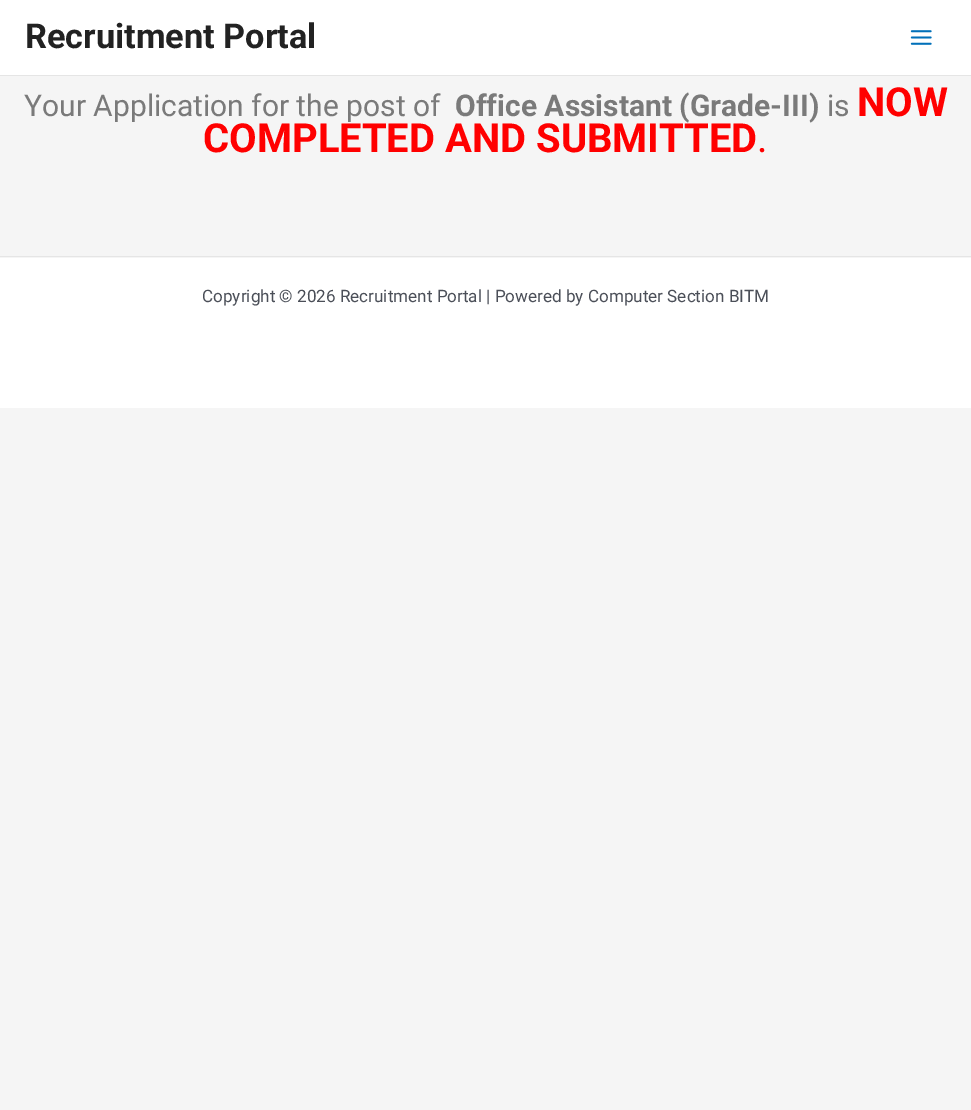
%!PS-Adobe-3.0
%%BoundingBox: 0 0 971 1110
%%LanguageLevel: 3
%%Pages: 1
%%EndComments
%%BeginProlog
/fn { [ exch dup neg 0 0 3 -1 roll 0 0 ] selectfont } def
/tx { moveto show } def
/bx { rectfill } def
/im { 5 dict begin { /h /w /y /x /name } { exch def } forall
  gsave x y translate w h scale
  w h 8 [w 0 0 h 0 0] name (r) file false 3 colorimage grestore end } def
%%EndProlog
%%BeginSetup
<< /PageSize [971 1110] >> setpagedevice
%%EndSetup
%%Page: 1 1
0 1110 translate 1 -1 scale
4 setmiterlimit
0.961 setgray
0 0 971 1110 bx
1 setgray
0 0 971 75 bx
0.898 setgray
0 75 971 1 bx
/Roboto-Bold 34.25 fn
0.133 setgray
(Recruitment Portal) 25 48 tx
(image0.raw) 910 30 22 15 im
/Roboto-Regular 30 fn
0.478 setgray
(Your Application for the post of) 24 116 tx
/Roboto-Bold 30 fn
(Office Assistant \(Grade-III\)) 455 116 tx
/Roboto-Regular 30 fn
(is) 827 116 tx
/Roboto-Bold 40 fn
1 0 0 setrgbcolor
(NOW) 857 116 tx
(COMPLETED AND SUBMITTED) 203 152 tx
/Roboto-Regular 40 fn
(.) 757 152 tx
1 setgray
0 258 971 150 bx
0.898 setgray
0 256 971 1 bx
/Roboto-Regular 17.1 fn
0.294 0.31 0.345 setrgbcolor
(Copyright © 2026 Recruitment Portal | Powered by Computer Section BITM) 202 302 tx
showpage
%%EOF
